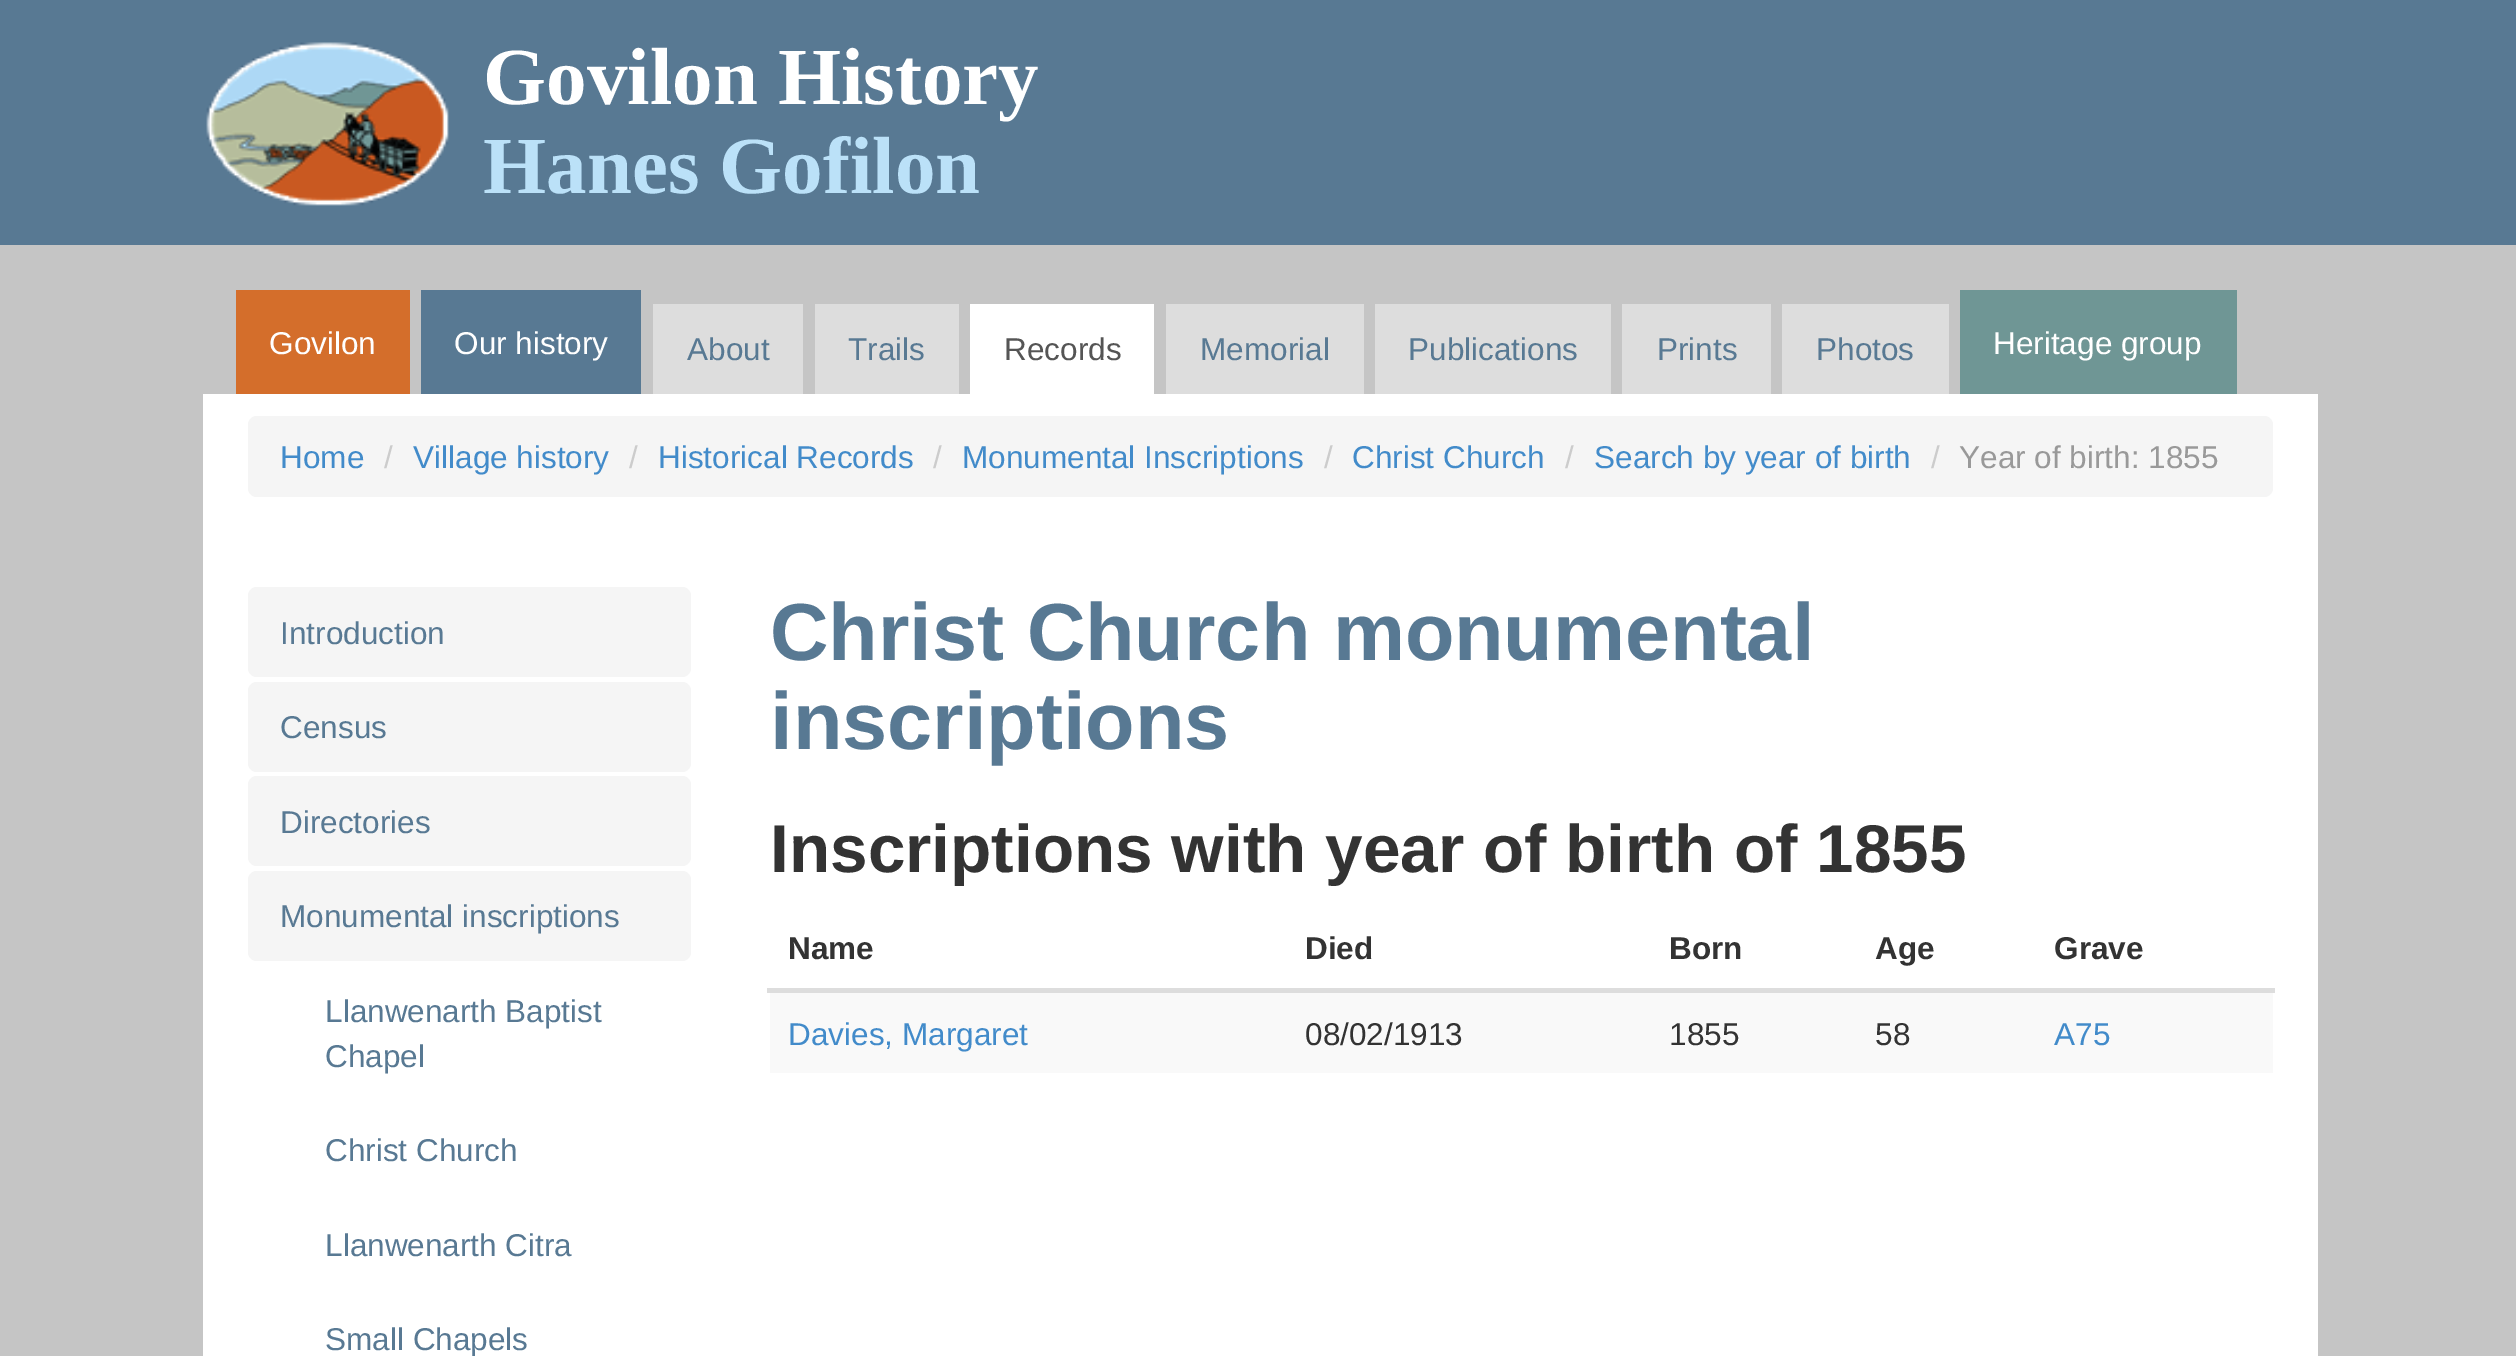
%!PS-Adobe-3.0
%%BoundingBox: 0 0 2516 1356
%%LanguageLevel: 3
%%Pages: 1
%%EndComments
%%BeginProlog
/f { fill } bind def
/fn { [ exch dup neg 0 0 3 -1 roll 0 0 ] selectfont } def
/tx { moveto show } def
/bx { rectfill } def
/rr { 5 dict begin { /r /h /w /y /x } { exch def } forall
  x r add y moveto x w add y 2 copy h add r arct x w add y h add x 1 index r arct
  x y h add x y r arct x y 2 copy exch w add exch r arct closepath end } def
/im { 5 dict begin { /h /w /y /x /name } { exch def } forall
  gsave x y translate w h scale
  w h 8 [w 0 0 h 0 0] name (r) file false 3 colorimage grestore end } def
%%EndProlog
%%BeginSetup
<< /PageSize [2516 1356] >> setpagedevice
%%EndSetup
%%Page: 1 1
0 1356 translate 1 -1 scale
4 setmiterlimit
0.773 setgray
0 0 2516 1356 bx
0.345 0.475 0.576 setrgbcolor
0 0 2516 245 bx
(image0.raw) 206 42 243 164 im
/LiberationSerif-Bold 81 fn
1 setgray
(Govilon History) 483 104 tx
0.733 0.882 0.973 setrgbcolor
(Hanes Gofilon) 483 193 tx
0.831 0.431 0.169 setrgbcolor
236 290 174 104 bx
/LiberationSans-Regular 31.5 fn
1 setgray
(Govilon) 269 354 tx
0.345 0.475 0.576 setrgbcolor
421 290 220 104 bx
1 setgray
(Our history) 454 354 tx
0.867 setgray
653 304 150 90 bx
0.345 0.475 0.576 setrgbcolor
(About) 687 360 tx
0.867 setgray
815 304 144 90 bx
0.345 0.475 0.576 setrgbcolor
(Trails) 848 360 tx
1 setgray
970 304 184 90 bx
0.333 setgray
(Records) 1004 360 tx
0.867 setgray
1166 304 198 90 bx
0.345 0.475 0.576 setrgbcolor
(Memorial) 1200 360 tx
0.867 setgray
1375 304 236 90 bx
0.345 0.475 0.576 setrgbcolor
(Publications) 1408 360 tx
0.867 setgray
1622 304 149 90 bx
0.345 0.475 0.576 setrgbcolor
(Prints) 1657 360 tx
0.867 setgray
1782 304 167 90 bx
0.345 0.475 0.576 setrgbcolor
(Photos) 1816 360 tx
0.435 0.588 0.584 setrgbcolor
1960 290 277 104 bx
1 setgray
(Heritage group) 1993 354 tx
203 394 2115 962 bx
0.961 setgray
248 416 2025 81 9 rr f
0.259 0.545 0.792 setrgbcolor
(Home) 280 468 tx
0.8 setgray
(/) 384 468 tx
0.259 0.545 0.792 setrgbcolor
(Village history) 413 468 tx
0.8 setgray
(/) 629 468 tx
0.259 0.545 0.792 setrgbcolor
(Historical Records) 658 468 tx
0.8 setgray
(/) 933 468 tx
0.259 0.545 0.792 setrgbcolor
(Monumental Inscriptions) 962 468 tx
0.8 setgray
(/) 1324 468 tx
0.259 0.545 0.792 setrgbcolor
(Christ Church) 1352 468 tx
0.8 setgray
(/) 1565 468 tx
0.259 0.545 0.792 setrgbcolor
(Search by year of birth) 1594 468 tx
0.8 setgray
(/) 1931 468 tx
0.6 setgray
(Year of birth: 1855) 1959 468 tx
0.961 setgray
248 587 443 90 9 rr f
0.345 0.475 0.576 setrgbcolor
(Introduction) 280 644 tx
0.961 setgray
248 682 443 90 9 rr f
0.345 0.475 0.576 setrgbcolor
(Census) 280 738 tx
0.961 setgray
248 776 443 90 9 rr f
0.345 0.475 0.576 setrgbcolor
(Directories) 280 833 tx
0.961 setgray
248 871 443 90 9 rr f
0.345 0.475 0.576 setrgbcolor
(Monumental inscriptions) 280 927 tx
(Llanwenarth Baptist) 325 1022 tx
(Chapel) 325 1067 tx
(Christ Church) 325 1161 tx
(Llanwenarth Citra) 325 1256 tx
(Small Chapels) 325 1350 tx
/LiberationSans-Bold 81 fn
(Christ Church monumental) 770 660 tx
(inscriptions) 770 749 tx
/LiberationSans-Bold 67.5 fn
0.2 setgray
(Inscriptions with year of birth of 1855) 770 872 tx
/LiberationSans-Bold 31.5 fn
(Name) 788 959 tx
(Died) 1305 959 tx
(Born) 1669 959 tx
(Age) 1875 959 tx
0.867 setgray
767 988 1508 5 bx
0.2 setgray
(Grave) 2054 959 tx
0.976 setgray
770 993 1503 80 bx
/LiberationSans-Regular 31.5 fn
0.259 0.545 0.792 setrgbcolor
(Davies, Margaret) 788 1045 tx
0.2 setgray
(08/02/1913) 1305 1045 tx
(1855) 1669 1045 tx
(58) 1875 1045 tx
0.259 0.545 0.792 setrgbcolor
(A75) 2054 1045 tx
showpage
%%EOF
